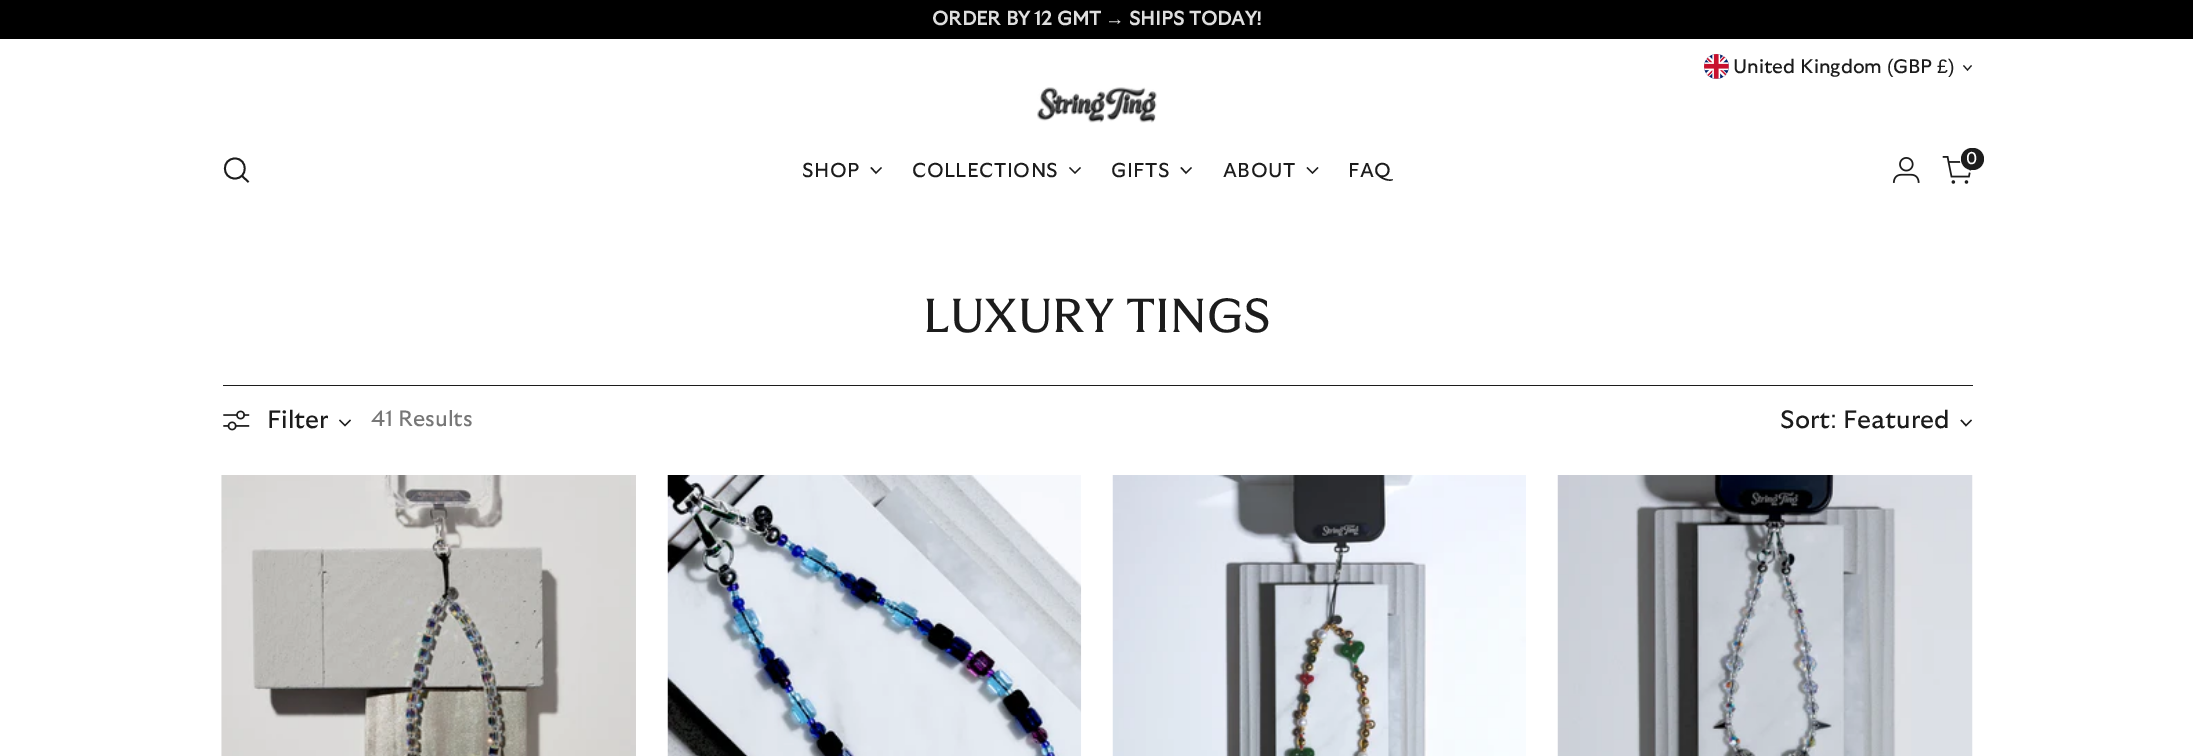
%!PS-Adobe-3.0
%%BoundingBox: 0 0 2193 756
%%LanguageLevel: 3
%%Pages: 1
%%EndComments
%%BeginProlog
/m { moveto } bind def
/l { lineto } bind def
/c { curveto } bind def
/h { closepath } bind def
/f { fill } bind def
/S { stroke } bind def
/q { gsave } bind def
/Q { grestore } bind def
/w { setlinewidth } bind def
/fn { [ exch dup neg 0 0 3 -1 roll 0 0 ] selectfont } def
/tx { moveto show } def
/bx { rectfill } def
/rr { 5 dict begin { /r /h /w /y /x } { exch def } forall
  x r add y moveto x w add y 2 copy h add r arct x w add y h add x 1 index r arct
  x y h add x y r arct x y 2 copy exch w add exch r arct closepath end } def
/im { 5 dict begin { /h /w /y /x /name } { exch def } forall
  gsave x y translate w h scale
  w h 8 [w 0 0 h 0 0] name (r) file false 3 colorimage grestore end } def
%%EndProlog
%%BeginSetup
<< /PageSize [2193 756] >> setpagedevice
%%EndSetup
%%Page: 1 1
0 756 translate 1 -1 scale
4 setmiterlimit
1 setgray
0 0 2193 756 bx
0 setgray
0 0 2193 39 bx
/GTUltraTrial-Bold 19.5 fn
0.871 setgray
932 25 m -0.1 0 (ORDER BY 12 GMT) ashow
/LiberationSans-Bold 19.5 fn
1105 25 m -0.1 0 (→) ashow
/GTUltraTrial-Bold 19.5 fn
1129 25 m -0.1 0 (SHIPS TODAY) ashow
/LiberationSans-Bold 19.5 fn
1256 25 m -0.1 0 (!) ashow
(image0.raw) 1704 54 25 25 im
/GTUltraTrial-Regular 19.5 fn
0.11 setgray
(United Kingdom) 1733 73 tx
/LiberationSans-Regular 19.5 fn
(\() 1887 73 tx
/GTUltraTrial-Regular 19.5 fn
(GBP) 1893 73 tx
/LiberationSans-Regular 19.5 fn
(£\)) 1937 73 tx
1.1 w
1963.5 65.5 m 1967.5 70 l 1971.5 65.5 l S
(image1.raw) 1037 87 120 36 im
1.8 w
1 setlinecap
235 178.5 m 248 178.5 248 158.5 235 158.5 c 221.5 158.5 221.5 178.5 235 178.5 c h S
0 setlinecap
242 176 m 248.5 182 l S
/GTUltraTrial-Regular 20 fn
802 177 m 0.5 0 (SHOP) ashow
1.4 w
871 167.5 m 876 173 l 881.5 167.5 l S
912 177 m 0.5 0 (COLLECTIONS) ashow
1069.5 167.5 m 1075 173 l 1080.5 167.5 l S
1111 177 m 0.5 0 (GIFTS) ashow
1181 167.5 m 1186 173 l 1191.5 167.5 l S
1223 177 m 0.5 0 (ABOUT) ashow
1307 167.5 m 1312.5 173 l 1318 167.5 l S
q
801 128 592 85 rectclip
1348 177 m 0.5 0 (FAQ) ashow
Q
(image2.raw) 1892 157 28 26 im
(image3.raw) 1942 156 30 28 im
1 setgray
2 w
1961 147 24 25 12 rr S
0.11 setgray
1961 148 23 22 11 rr f
/GTUltraTrial-Regular 17 fn
1 setgray
1966 164 m -0.1 0 (0) ashow
/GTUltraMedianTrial-Regular 47.5 fn
0.11 setgray
(LUXURY TINGS) 923 332 tx
223 385 1750 1 bx
(image4.raw) 223 410 27 21 im
/GTUltraTrial-Regular 25 fn
(Filter) 267 428 tx
1.4 w
339.5 420 m 345 425.5 l 350.5 420 l S
/GTUltraTrial-Regular 22 fn
0.467 setgray
371 426 m -0.1 0 (41 Results) ashow
/GTUltraTrial-Regular 25 fn
0.11 setgray
(Sort) 1780 428 tx
/LiberationSans-Regular 25 fn
(:) 1830 428 tx
/GTUltraTrial-Regular 25 fn
(Featured) 1843 428 tx
1961 420 m 1966 425.5 l 1971.5 420 l S
(image5.raw) 221 475 415 281 im
(image6.raw) 667 475 415 281 im
(image7.raw) 1112 475 414 281 im
(image8.raw) 1557 475 416 281 im
showpage
%%EOF
